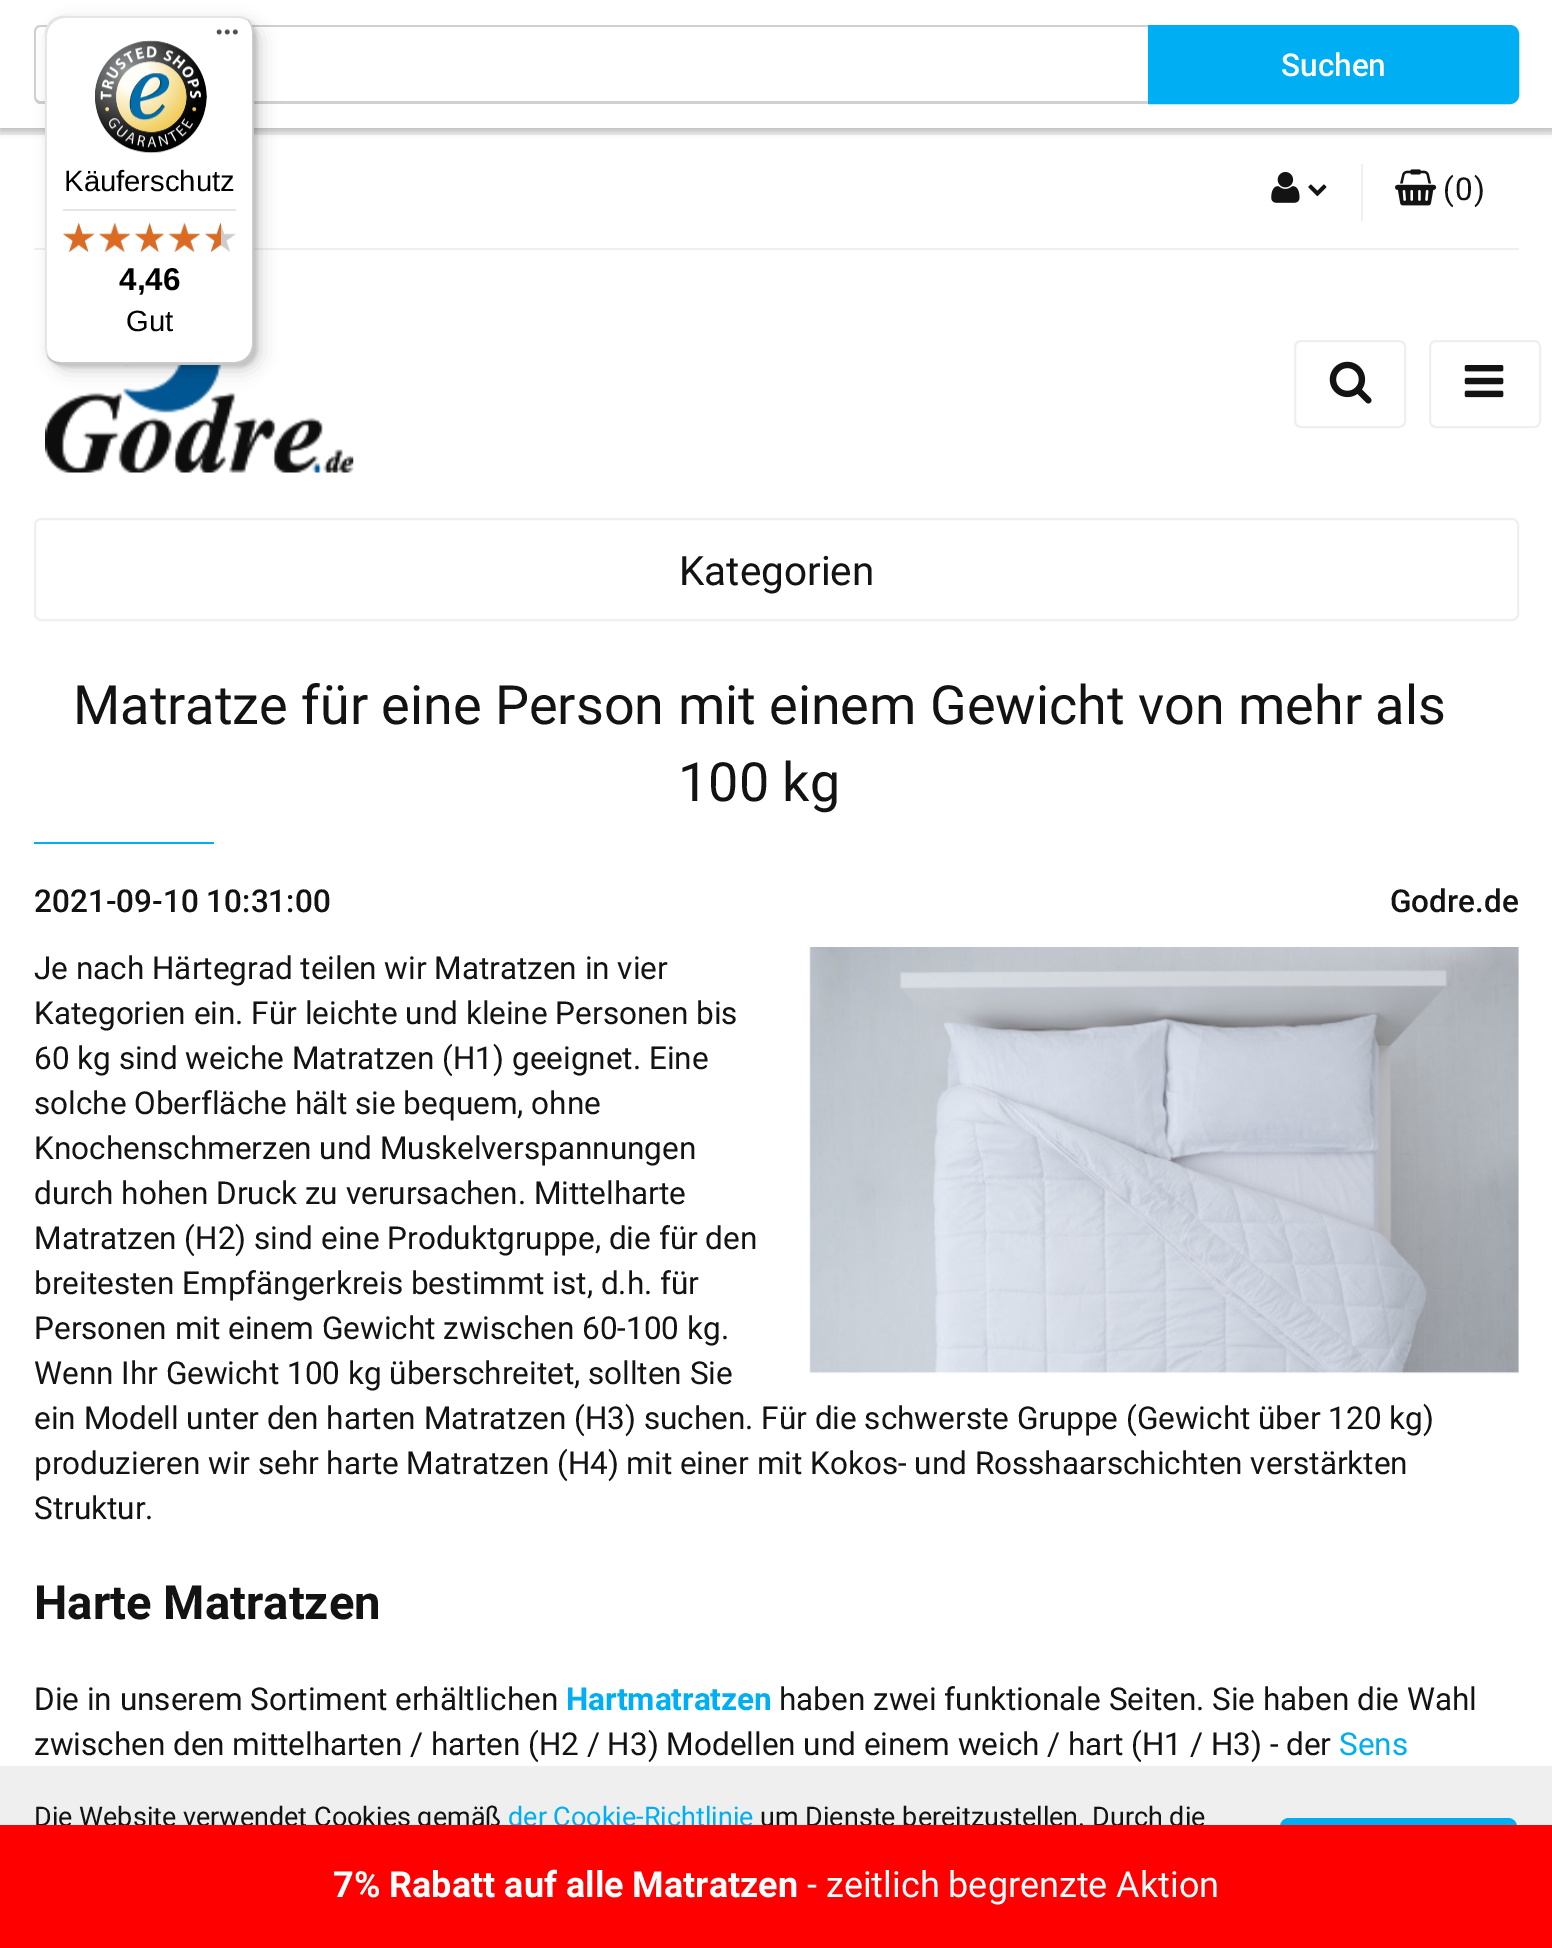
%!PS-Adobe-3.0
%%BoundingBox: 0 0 1552 1948
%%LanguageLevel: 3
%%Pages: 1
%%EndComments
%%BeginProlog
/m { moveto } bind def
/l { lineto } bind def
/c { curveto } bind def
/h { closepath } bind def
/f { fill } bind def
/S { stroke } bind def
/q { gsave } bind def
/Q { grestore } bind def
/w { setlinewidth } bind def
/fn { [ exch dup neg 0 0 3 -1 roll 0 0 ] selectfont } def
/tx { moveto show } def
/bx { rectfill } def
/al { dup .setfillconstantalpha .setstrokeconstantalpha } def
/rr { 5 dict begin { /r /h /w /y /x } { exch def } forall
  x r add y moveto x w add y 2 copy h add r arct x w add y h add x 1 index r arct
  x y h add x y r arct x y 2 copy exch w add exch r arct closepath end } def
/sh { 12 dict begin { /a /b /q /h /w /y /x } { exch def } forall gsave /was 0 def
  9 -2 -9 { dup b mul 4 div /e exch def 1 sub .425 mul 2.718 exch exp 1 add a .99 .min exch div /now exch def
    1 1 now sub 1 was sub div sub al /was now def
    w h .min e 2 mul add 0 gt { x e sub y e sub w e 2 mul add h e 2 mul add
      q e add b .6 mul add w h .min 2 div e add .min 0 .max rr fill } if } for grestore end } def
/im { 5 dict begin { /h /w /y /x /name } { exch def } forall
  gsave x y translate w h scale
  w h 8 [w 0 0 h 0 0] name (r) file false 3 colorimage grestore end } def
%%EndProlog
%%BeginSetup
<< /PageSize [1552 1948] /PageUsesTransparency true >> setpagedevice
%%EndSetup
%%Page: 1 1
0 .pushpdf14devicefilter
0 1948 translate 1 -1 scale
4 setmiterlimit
1 setgray
0 0 1552 1948 bx
0.925 setgray
0 128 1552 7 bx
0 setgray
0 -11 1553 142 0 3.5 0.2 sh
1 setgray
0 0 1552 128 bx
0.816 setgray
40 25 m 1148 25 l 1148 104 l 40 104 l 37 104 34 100 34 97 c 34 32 l 34 28 37 25 40 25 c h 40 27 m 1148 27 l 1148 101 l 40 101 l 38 101 36 99 36 97 c 36 32 l 36 29 38 27 40 27 c h eofill
0 0.682 0.953 setrgbcolor
1151.5 28.5 m 1510 28.5 l 1513 28.5 1515.5 31 1515.5 34 c 1515.5 95 l 1515.5 98 1513 100.5 1510 100.5 c 1151.5 100.5 l h q f Q
7 w
S
/Roboto-Medium 31.5 fn
1 setgray
(Suchen) 1281 76 tx
0.937 setgray
34 248 1485 2 bx
(image0.raw) 1271 172 29 31 im
(image1.raw) 1308 184 19 13 im
1361 164 2 57 bx
(image2.raw) 1395 169 42 37 im
/Roboto-Regular 31.5 fn
0.075 setgray
(\() 1443 200 tx
(0) 1455 200 tx
(\)) 1474 200 tx
(image3.raw) 45 362 309 111 im
0.937 setgray
2 w
1295 341 110 86 6 rr S
(image4.raw) 1329 361 43 43 im
1430 341 110 86 6 rr S
(image5.raw) 1464 365 40 33 im
35 519 1483 101 6 rr S
/Roboto-Regular 40.5 fn
0.075 setgray
(Kategorien) 679 585 tx
/Roboto-Regular 54 fn
(Matratze für eine Person mit einem Gewicht von mehr als) 73 724 tx
(100 kg) 678 801 tx
0 0.682 0.953 setrgbcolor
34 842 180 2 bx
/Roboto-Medium 31.5 fn
0.075 setgray
(2021-09-10 10:31:00) 34 912 tx
(Godre.de) 1390 912 tx
(image6.raw) 809 947 710 427 im
/Roboto-Regular 31.5 fn
(Je nach Härtegrad teilen wir Matratzen in vier) 34 979 tx
(Kategorien ein. Für leichte und kleine Personen bis) 34 1024 tx
(60 kg sind weiche Matratzen \(H1\) geeignet. Eine) 34 1069 tx
(solche Oberfläche hält sie bequem, ohne) 34 1114 tx
(Knochenschmerzen und Muskelverspannungen) 34 1159 tx
(durch hohen Druck zu verursachen. Mittelharte) 34 1204 tx
(Matratzen \(H2\) sind eine Produktgruppe, die für den) 34 1249 tx
(breitesten Empfängerkreis bestimmt ist, d.h. für) 34 1294 tx
(Personen mit einem Gewicht zwischen 60-100 kg.) 34 1339 tx
(Wenn Ihr Gewicht 100 kg überschreitet, sollten Sie) 34 1384 tx
(ein Modell unter den harten Matratzen \(H3\) suchen. Für die schwerste Gruppe \(Gewicht über 120 kg\)) 34 1429 tx
(produzieren wir sehr harte Matratzen \(H4\) mit einer mit Kokos- und Rosshaarschichten verstärkten) 34 1474 tx
(Struktur.) 34 1519 tx
/Roboto-Bold 47.25 fn
(Harte Matratzen) 34 1619 tx
/Roboto-Regular 31.5 fn
(Die in unserem Sortiment erhältlichen) 34 1710 tx
/Roboto-Bold 31.5 fn
0 0.682 0.953 setrgbcolor
(Hartmatratzen) 566 1710 tx
/Roboto-Regular 31.5 fn
0.075 setgray
(haben zwei funktionale Seiten. Sie haben die Wahl) 779 1710 tx
(zwischen den mittelharten / harten \(H2 / H3\) Modellen und einem weich / hart \(H1 / H3\) - der) 34 1755 tx
0 0.682 0.953 setrgbcolor
(Sens) 1339 1755 tx
0 setgray
52 23 209 348 18 9 0.15 sh
47 18 210 349 18 2 0.15 sh
1 setgray
45 16 209 349 18 rr f
0.1 al
0 setgray
65 18 m 238 18 l 242 18 246 20 250 22 c 246 18 241 16 236 16 c 63 16 l 53 16 45 24 45 34 c 45 347 l 45 352 47 357 51 361 c 49 357 47 353 47 349 c 47 36 l 47 26 55 18 65 18 c h f
0.2 al
47 356 m 50 361 56 365 63 365 c 236 365 l 246 365 254 357 254 347 c 254 34 l 254 29 252 24 248 20 c 250 24 252 28 252 32 c 252 344 l 252 354 244 362 234 362 c 61 362 l 55 362 50 360 47 356 c h f
0.196 setgray
47 354 m 49 361 56 365 63 365 c 236 365 l 246 365 254 357 254 347 c 254 34 l 254 31 253 28 252 25 c 253 27 253 30 253 32 c 253 345 l 253 355 245 363 235 363 c 62 363 l 55 363 50 359 47 354 c h f
0.3 al
1 setgray
47 354 m 49 361 56 365 63 365 c 236 365 l 246 365 254 357 254 347 c 254 34 l 254 29 252 24 249 21 c 251 24 253 28 253 33 c 253 345 l 253 355 245 363 235 363 c 62 363 l 55 363 50 359 47 354 c h f
1 al
(image7.raw) 216 29 22 7 im
(image8.raw) 95 40 112 114 im
/LiberationSans-Regular 29.25 fn
0 setgray
(Käuferschutz) 64 191 tx
0.898 setgray
63 209 173 2 bx
(image14.raw) 63 223 31 29 im
(image9.raw) 63 222 31 30 im
(image15.raw) 99 223 31 29 im
(image10.raw) 99 222 32 30 im
(image16.raw) 135 223 29 29 im
(image11.raw) 135 222 29 30 im
(image17.raw) 168 223 32 29 im
(image12.raw) 168 222 32 30 im
(image18.raw) 205 223 31 29 im
(image13.raw) 205 222 16 30 im
/LiberationSans-Bold 31.5 fn
0 setgray
(4,46) 119 290 tx
/LiberationSans-Regular 29.25 fn
(Gut) 126 331 tx
0.937 setgray
0 1766 1552 59 bx
/Roboto-Regular 27 fn
0.075 setgray
(Die Website verwendet Cookies gemäß) 34 1826 tx
0 0.682 0.953 setrgbcolor
(der Cookie-Richtlinie) 508 1826 tx
0.075 setgray
(um Dienste bereitzustellen. Durch die) 760 1826 tx
0 0.682 0.953 setrgbcolor
7 w
1283.5 1821.5 230 72 5.5 rr S
1 0 0 setrgbcolor
0 1825 1552 123 bx
/Roboto-Bold 36 fn
1 setgray
(7% Rabatt auf alle Matratzen) 333 1897 tx
/Roboto-Regular 36 fn
(- zeitlich begrenzte Aktion) 807 1897 tx
.poppdf14devicefilter showpage
%%EOF
